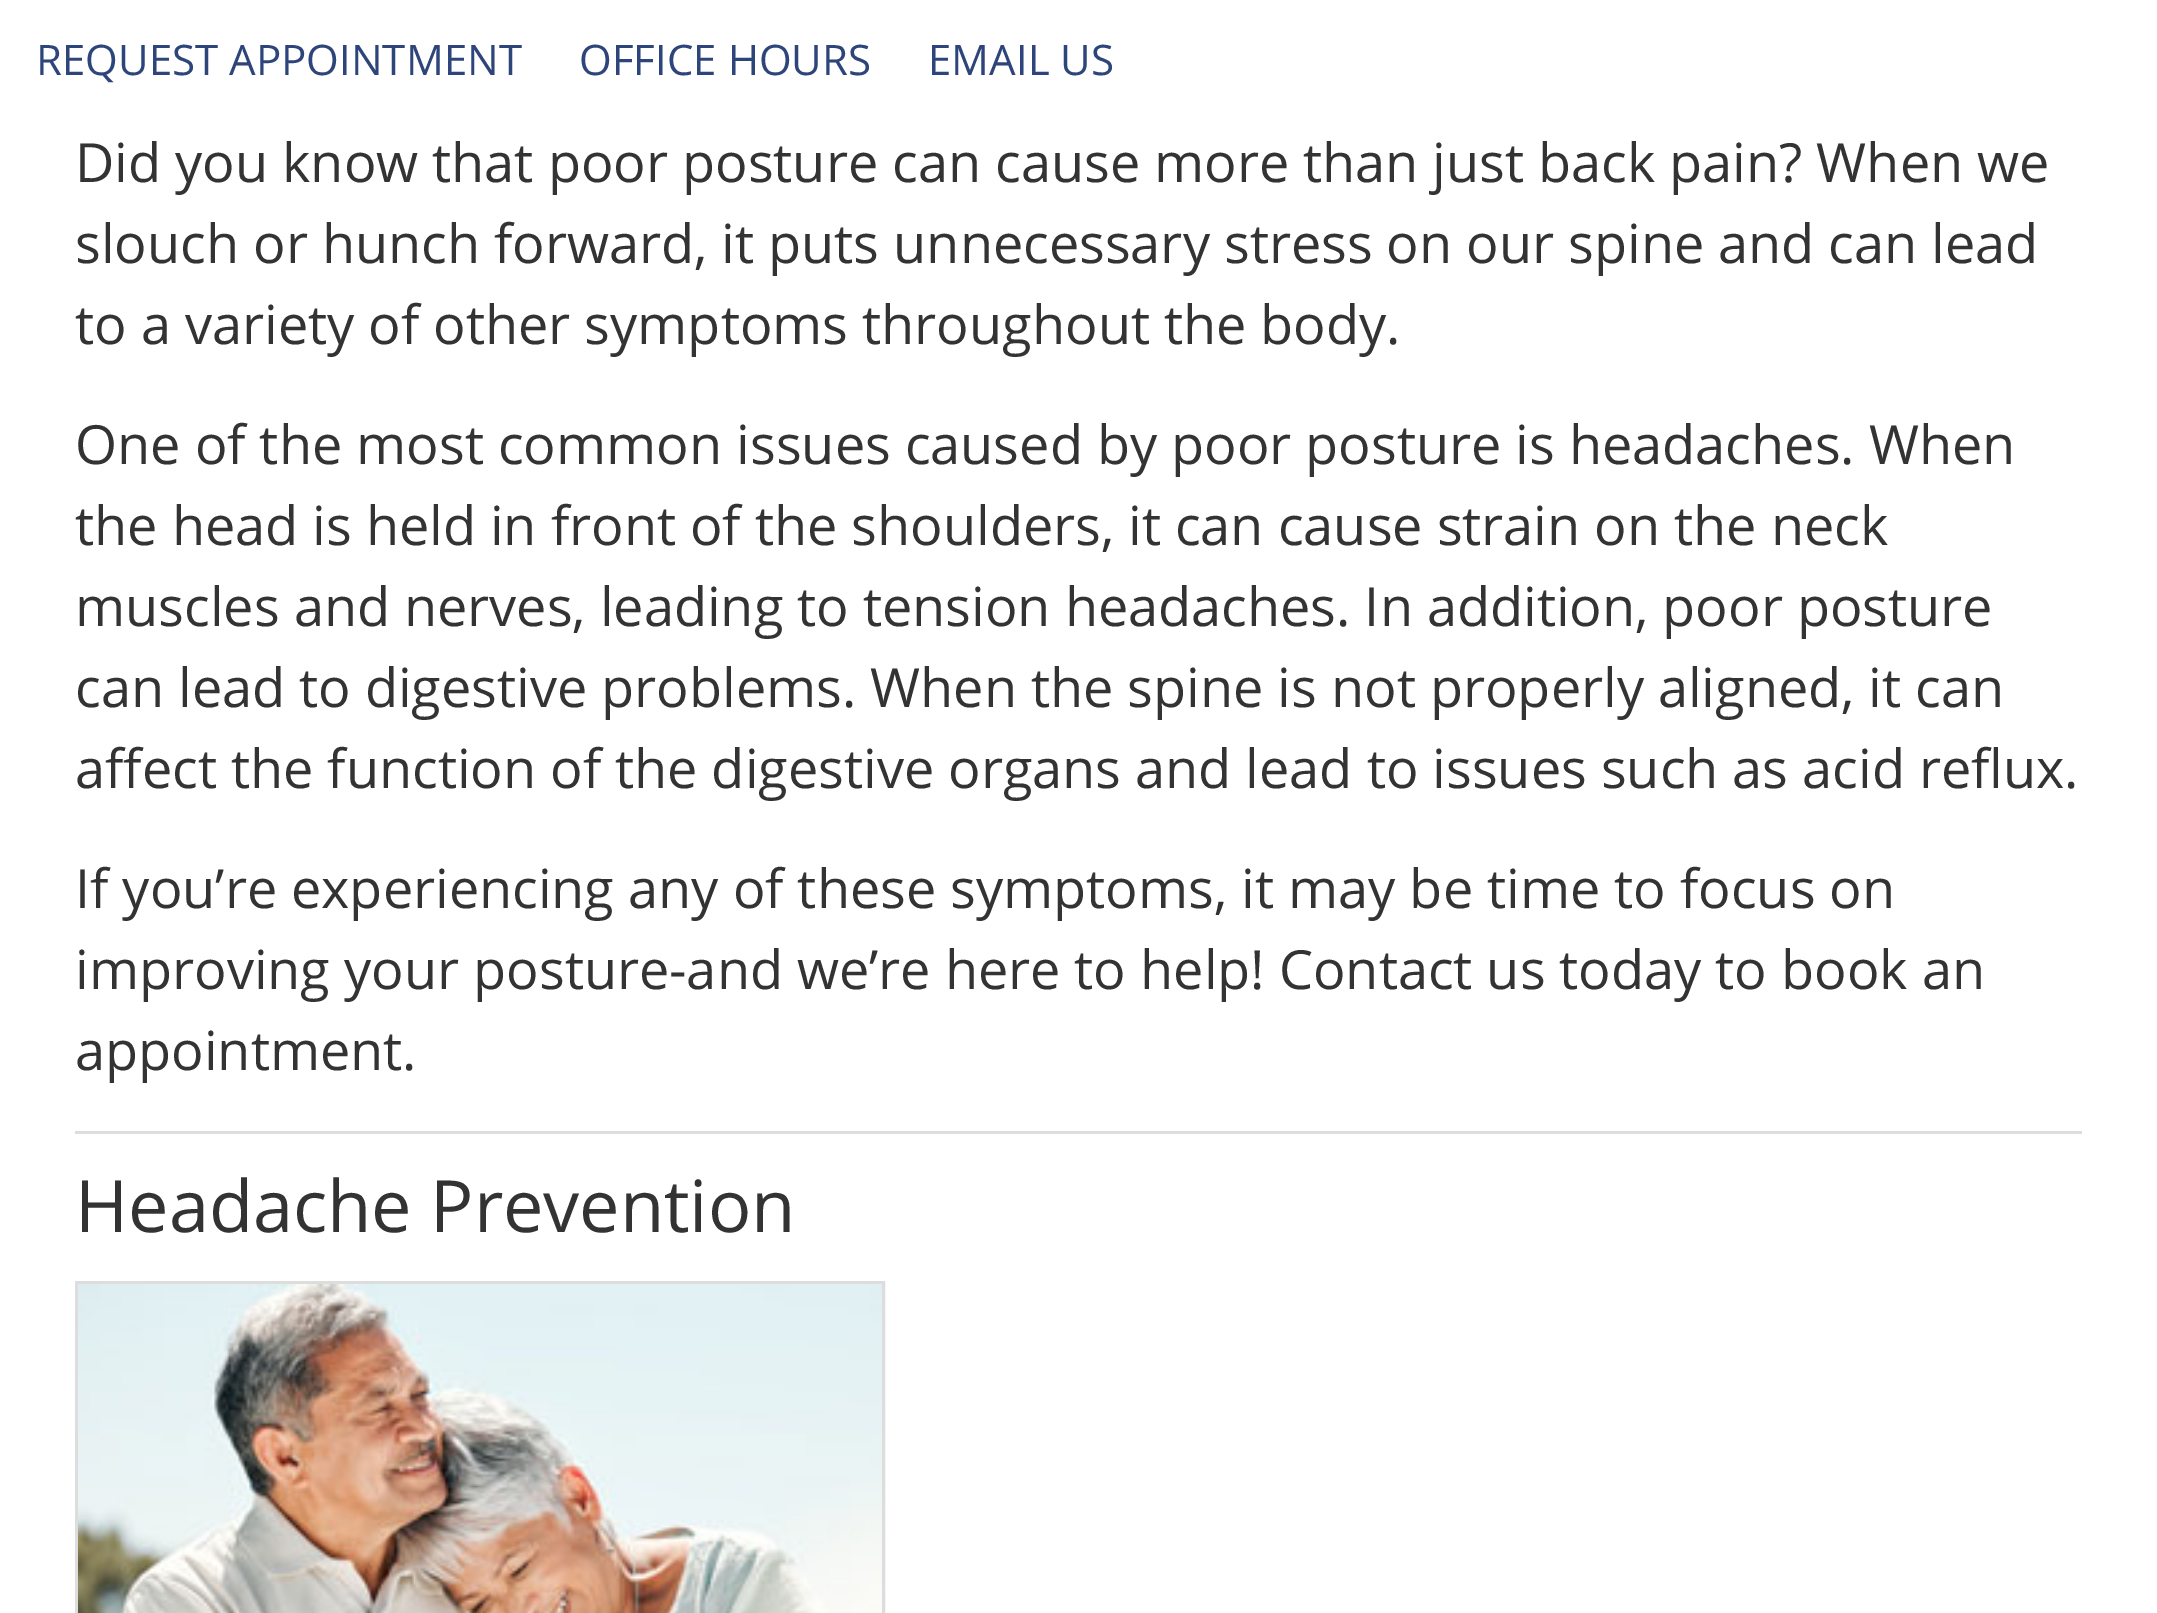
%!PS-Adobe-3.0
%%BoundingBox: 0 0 2157 1613
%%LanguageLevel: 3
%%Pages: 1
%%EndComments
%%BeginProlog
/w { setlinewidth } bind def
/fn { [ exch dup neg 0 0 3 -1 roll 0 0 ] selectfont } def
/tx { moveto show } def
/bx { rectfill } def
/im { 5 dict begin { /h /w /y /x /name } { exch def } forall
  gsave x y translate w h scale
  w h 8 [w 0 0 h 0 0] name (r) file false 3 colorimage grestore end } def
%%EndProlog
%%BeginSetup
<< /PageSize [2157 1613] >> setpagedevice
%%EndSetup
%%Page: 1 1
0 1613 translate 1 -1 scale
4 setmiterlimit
1 setgray
0 0 2157 1613 bx
/OpenSans-Regular 42 fn
0.176 0.271 0.478 setrgbcolor
(REQUEST APPOINTMENT) 36 75 tx
(OFFICE HOURS) 579 75 tx
(EMAIL US) 928 75 tx
/OpenSans-Regular 54 fn
0.2 setgray
(Did you know that poor posture can cause more than just back pain? When we) 75 182 tx
(slouch or hunch forward, it puts unnecessary stress on our spine and can lead) 75 263 tx
(to a variety of other symptoms throughout the body.) 75 344 tx
(One of the most common issues caused by poor posture is headaches. When) 75 464 tx
(the head is held in front of the shoulders, it can cause strain on the neck) 75 545 tx
(muscles and nerves, leading to tension headaches. In addition, poor posture) 75 626 tx
(can lead to digestive problems. When the spine is not properly aligned, it can) 75 707 tx
(affect the function of the digestive organs and lead to issues such as acid reflux.) 75 788 tx
(If you’re experiencing any of these symptoms, it may be time to focus on) 75 908 tx
(improving your posture-and we’re here to help! Contact us today to book an) 75 989 tx
(appointment.) 75 1070 tx
0.867 setgray
75 1131 2007 3 bx
/OpenSans-Regular 72 fn
0.2 setgray
(Headache Prevention) 75 1232 tx
0.867 setgray
3 w
76.5 1282.5 807 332 rectstroke
(image0.raw) 78 1284 804 329 im
showpage
%%EOF
